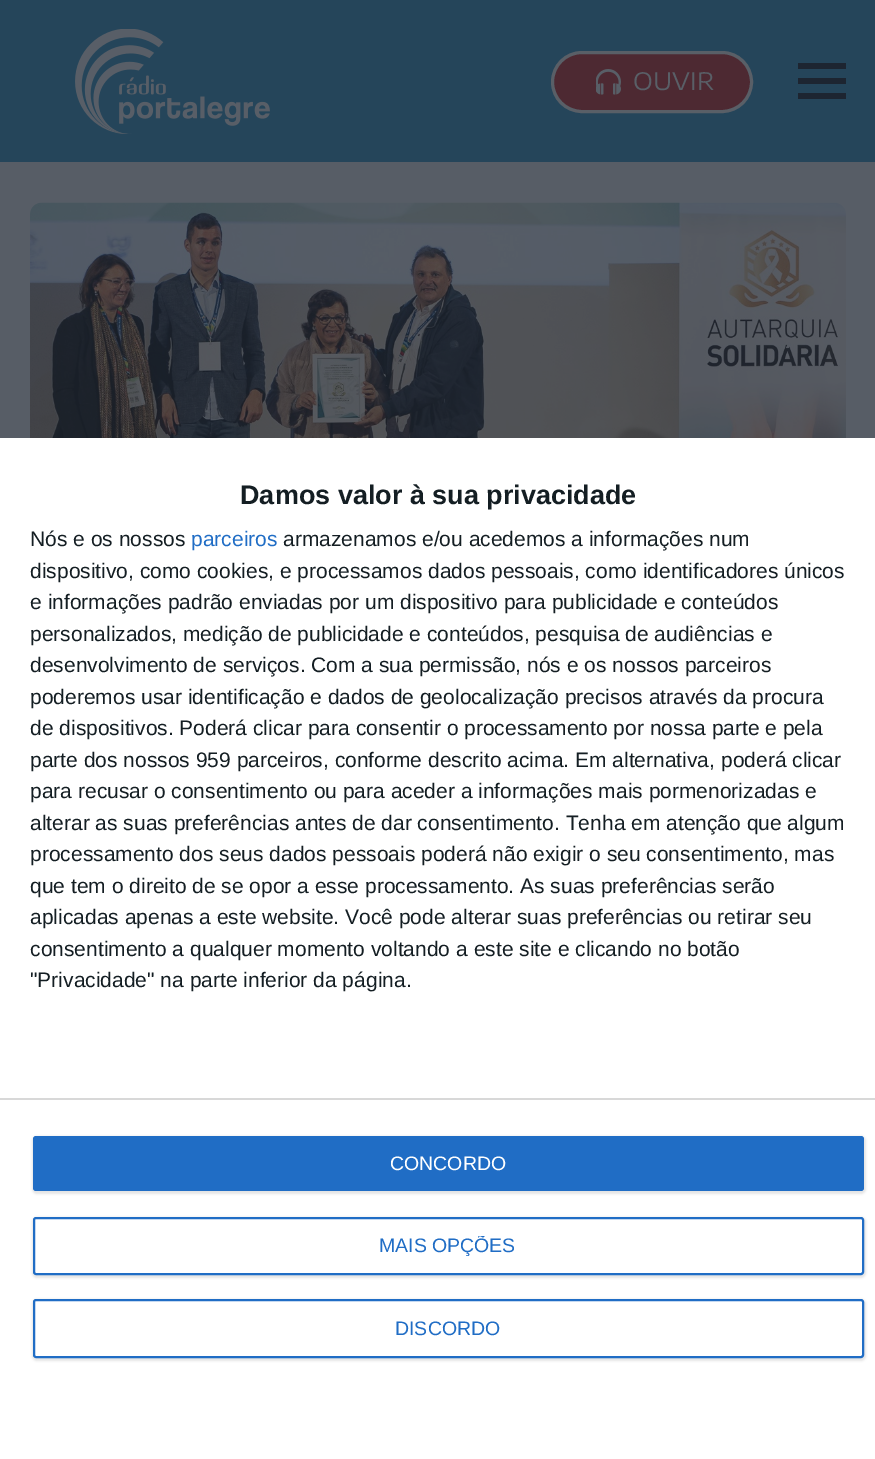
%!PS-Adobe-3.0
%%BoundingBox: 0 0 875 1459
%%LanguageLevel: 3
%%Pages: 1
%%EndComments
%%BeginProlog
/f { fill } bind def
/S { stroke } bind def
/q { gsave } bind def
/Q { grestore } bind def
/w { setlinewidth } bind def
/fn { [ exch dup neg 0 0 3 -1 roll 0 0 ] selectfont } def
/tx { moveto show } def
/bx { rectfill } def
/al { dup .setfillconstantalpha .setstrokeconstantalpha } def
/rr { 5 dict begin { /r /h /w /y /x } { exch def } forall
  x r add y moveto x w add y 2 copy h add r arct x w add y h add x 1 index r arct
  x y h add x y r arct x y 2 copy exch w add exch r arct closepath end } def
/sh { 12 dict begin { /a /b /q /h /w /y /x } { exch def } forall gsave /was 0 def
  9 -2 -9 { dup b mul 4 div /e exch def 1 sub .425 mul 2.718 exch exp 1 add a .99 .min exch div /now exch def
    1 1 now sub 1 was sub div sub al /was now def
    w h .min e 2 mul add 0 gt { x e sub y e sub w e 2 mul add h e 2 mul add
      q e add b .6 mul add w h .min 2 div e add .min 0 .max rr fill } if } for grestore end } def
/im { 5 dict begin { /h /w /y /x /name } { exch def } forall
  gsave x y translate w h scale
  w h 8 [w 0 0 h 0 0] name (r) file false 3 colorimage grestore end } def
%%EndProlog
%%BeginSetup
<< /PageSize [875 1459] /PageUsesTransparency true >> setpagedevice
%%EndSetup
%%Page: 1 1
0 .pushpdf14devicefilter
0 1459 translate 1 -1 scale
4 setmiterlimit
0.341 0.365 0.4 setrgbcolor
0 0 875 1459 bx
0.145 0.271 0.353 setrgbcolor
0 0 875 162 bx
(image0.raw) 75 29 195 105 im
0.302 0.161 0.196 setrgbcolor
552.5 52.5 199 59 29.5 rr q f Q
0.349 0.373 0.404 setrgbcolor
3 w
S
(image1.raw) 596 69 25 26 im
/EncodeSansExpanded-Regular 24 fn
(OUVIR) 633 90 tx
0.114 0.145 0.192 setrgbcolor
798 78 48 6 bx
798 63 48 6 bx
798 93 48 6 bx
(image2.raw) 30 202 816 236 im
1 setgray
0 438 875 1021 bx
/LiberationSans-Bold 27 fn
0.078 0.118 0.137 setrgbcolor
(Damos valor à sua privacidade) 240 504 tx
/LiberationSans-Regular 21 fn
(Nós e os nossos) 30 546 tx
0.125 0.427 0.773 setrgbcolor
(parceiros) 191 546 tx
0.078 0.118 0.137 setrgbcolor
(armazenamos e/ou acedemos a informações num) 283 546 tx
(dispositivo, como cookies, e processamos dados pessoais, como identificadores únicos) 30 578 tx
(e informações padrão enviadas por um dispositivo para publicidade e conteúdos) 30 609 tx
(personalizados, medição de publicidade e conteúdos, pesquisa de audiências e) 30 641 tx
(desenvolvimento de serviços. Com a sua permissão, nós e os nossos parceiros) 30 672 tx
(poderemos usar identificação e dados de geolocalização precisos através da procura) 30 704 tx
(de dispositivos. Poderá clicar para consentir o processamento por nossa parte e pela) 30 735 tx
(parte dos nossos 959 parceiros, conforme descrito acima. Em alternativa, poderá clicar) 30 767 tx
(para recusar o consentimento ou para aceder a informações mais pormenorizadas e) 30 798 tx
(alterar as suas preferências antes de dar consentimento. Tenha em atenção que algum) 30 830 tx
(processamento dos seus dados pessoais poderá não exigir o seu consentimento, mas) 30 861 tx
(que tem o direito de se opor a esse processamento. As suas preferências serão) 30 893 tx
(aplicadas apenas a este website. Você pode alterar suas preferências ou retirar seu) 30 924 tx
(consentimento a qualquer momento voltando a este site e clicando no botão) 30 956 tx
("Privacidade" na parte inferior da página.) 30 987 tx
0.847 setgray
0 1098 875 2 bx
0 setgray
32 1136 834 58 5 1 0.1 sh
0.125 0.427 0.773 setrgbcolor
33 1136 831 55 3 rr f
/LiberationSans-Regular 19.5 fn
1 setgray
(CONCORDO) 390 1170 tx
0 setgray
32 1217 834 61 5 1 0.1 sh
1 setgray
34 1218 829 56 2 rr q f Q
0.125 0.427 0.773 setrgbcolor
2 w
S
q
380 1236 136 20 rectclip
(MAIS OPÇÕES) 379 1252 tx
Q
0 setgray
32 1299 834 62 5 1 0.1 sh
1 setgray
34 1300 829 57 2 rr q f Q
0.125 0.427 0.773 setrgbcolor
S
(DISCORDO) 395 1335 tx
.poppdf14devicefilter showpage
%%EOF
